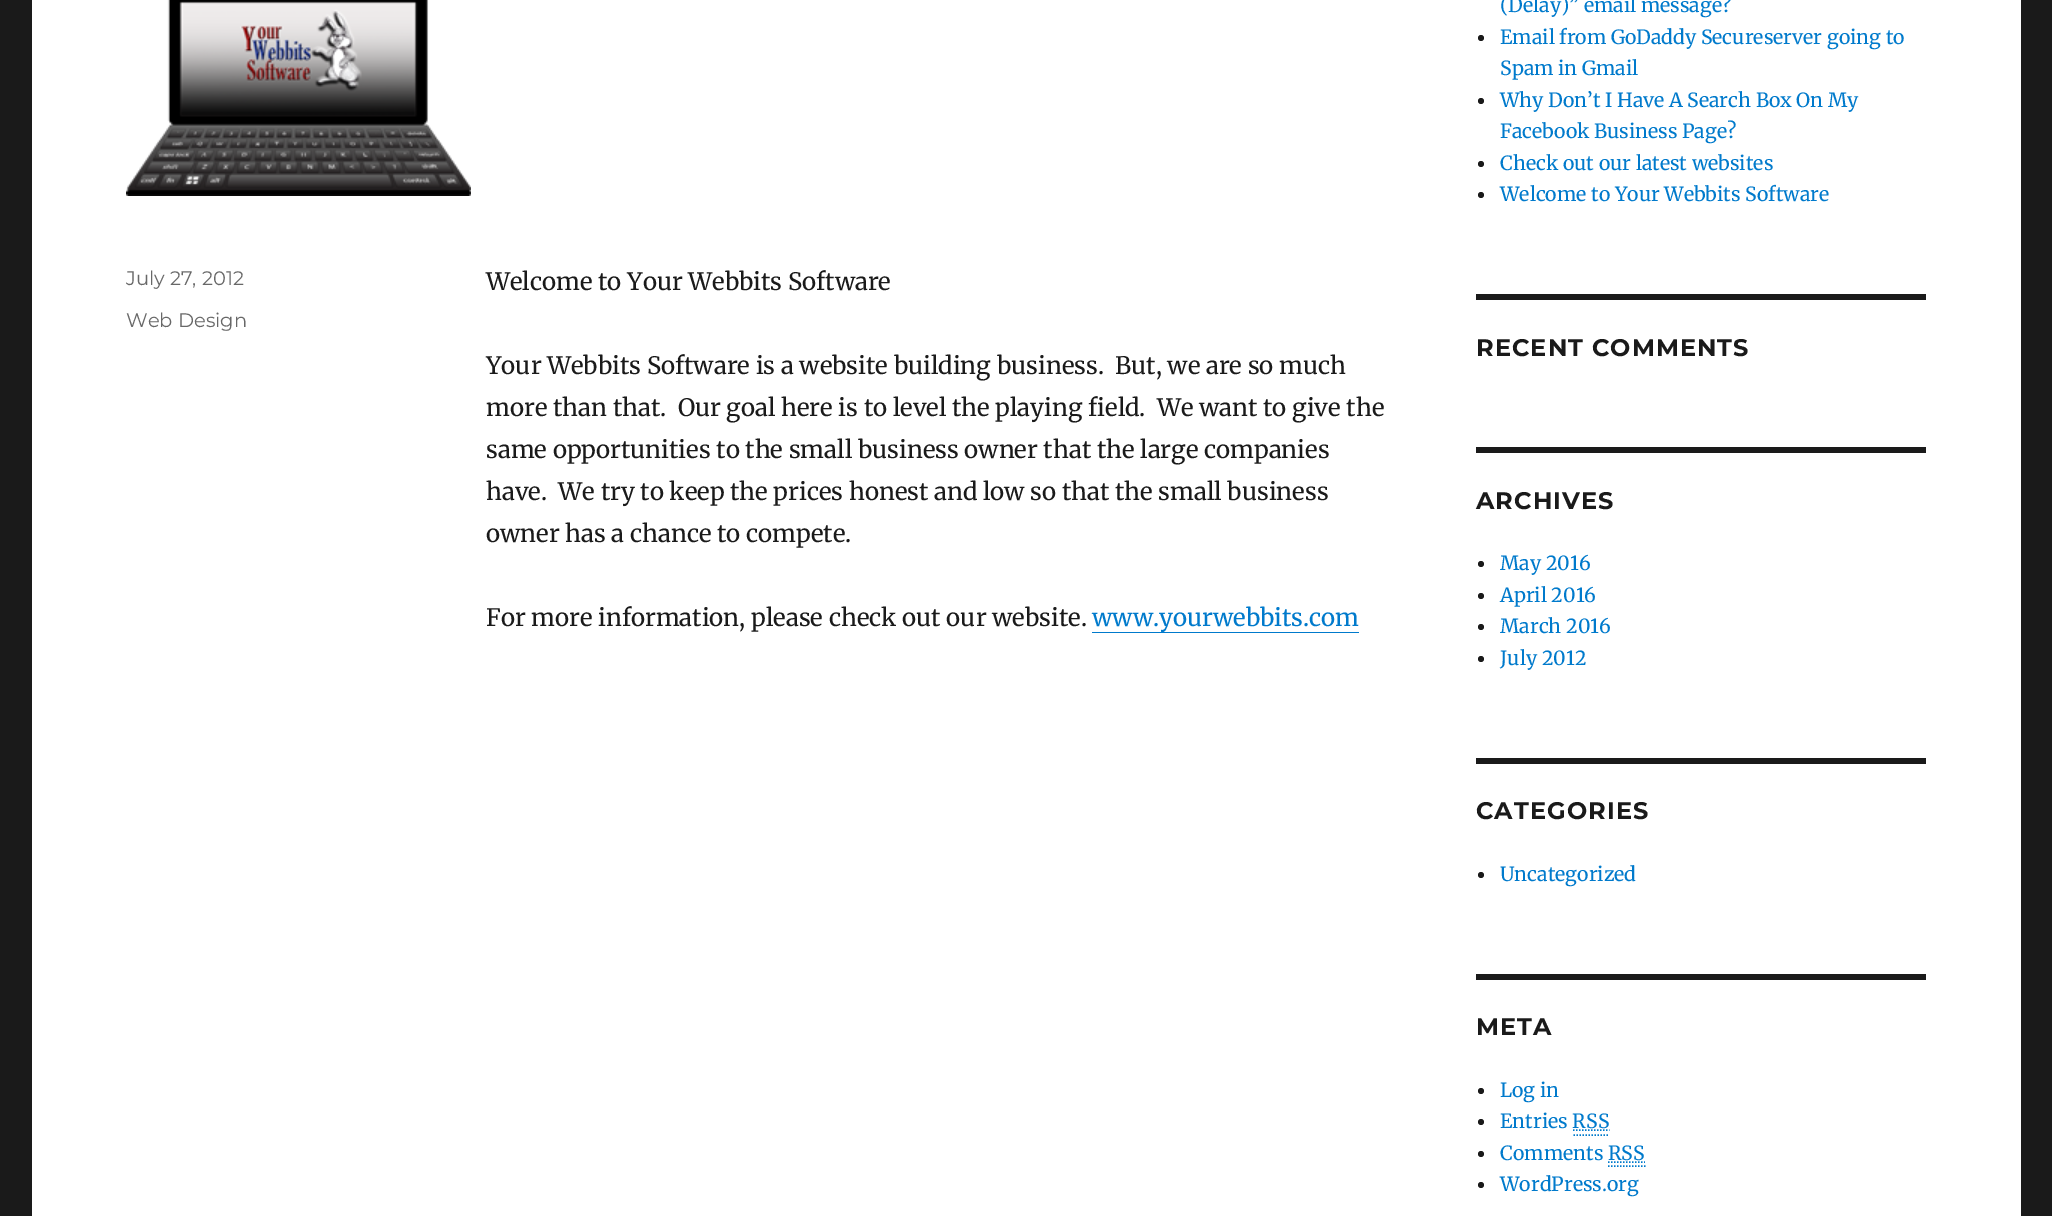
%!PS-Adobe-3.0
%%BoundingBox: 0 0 2052 1216
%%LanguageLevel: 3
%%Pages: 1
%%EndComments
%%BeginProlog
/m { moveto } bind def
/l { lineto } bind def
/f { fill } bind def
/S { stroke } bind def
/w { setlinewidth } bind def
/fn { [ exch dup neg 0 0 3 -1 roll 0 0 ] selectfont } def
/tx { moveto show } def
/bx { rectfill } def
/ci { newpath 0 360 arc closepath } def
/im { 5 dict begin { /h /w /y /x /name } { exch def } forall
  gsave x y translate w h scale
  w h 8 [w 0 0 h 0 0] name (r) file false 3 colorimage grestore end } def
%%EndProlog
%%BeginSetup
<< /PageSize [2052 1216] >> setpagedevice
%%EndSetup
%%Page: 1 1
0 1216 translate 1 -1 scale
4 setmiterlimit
0.102 setgray
0 0 2052 1216 bx
1 setgray
32 0 1989 1216 bx
(image0.raw) 126 0 345 196 im
/Montserrat-Regular 19.5 fn
0.408 setgray
(July 27, 2012) 126 285 tx
(Web Design) 126 327 tx
/Merriweather-Regular 24 fn
0.102 setgray
(Welcome to Your Webbits Software) 486 290 tx
(Your Webbits Software is a website building business.  But, we are so much) 486 374 tx
(more than that.  Our goal here is to level the playing field.  We want to give the) 486 416 tx
(same opportunities to the small business owner that the large companies) 486 458 tx
(have.  We try to keep the prices honest and low so that the small business) 486 500 tx
(owner has a chance to compete.) 486 542 tx
(For more information, please check out our website.) 486 626 tx
0 0.478 0.8 setrgbcolor
(www.yourwebbits.com) 1092 626 tx
1092 632 267 1 bx
/Merriweather-Regular 19.5 fn
(\(Delay\)” email message?) 1500 12 tx
0.102 setgray
1481 38 3 ci f
0 0.478 0.8 setrgbcolor
(Email from GoDaddy Secureserver going to) 1500 44 tx
(Spam in Gmail) 1500 75 tx
0.102 setgray
1481 101 3 ci f
0 0.478 0.8 setrgbcolor
(Why Don’t I Have A Search Box On My) 1500 107 tx
(Facebook Business Page?) 1500 138 tx
0.102 setgray
1481 164 3 ci f
0 0.478 0.8 setrgbcolor
(Check out our latest websites) 1500 170 tx
0.102 setgray
1481 195 3 ci f
0 0.478 0.8 setrgbcolor
(Welcome to Your Webbits Software) 1500 201 tx
0.102 setgray
1476 294 450 6 bx
/Montserrat-Bold 24 fn
1476 356 m 1.1 0 (RECENT COMMENTS) ashow
1476 447 450 6 bx
1476 509 m 1.1 0 (ARCHIVES) ashow
1481 564 3 ci f
/Merriweather-Regular 19.5 fn
0 0.478 0.8 setrgbcolor
(May 2016) 1500 570 tx
0.102 setgray
1481 596 3 ci f
0 0.478 0.8 setrgbcolor
(April 2016) 1500 602 tx
0.102 setgray
1481 627 3 ci f
0 0.478 0.8 setrgbcolor
(March 2016) 1500 633 tx
0.102 setgray
1481 659 3 ci f
0 0.478 0.8 setrgbcolor
(July 2012) 1500 665 tx
0.102 setgray
1476 758 450 6 bx
/Montserrat-Bold 24 fn
1476 819 m 1.1 0 (CATEGORIES) ashow
1481 875 3 ci f
/Merriweather-Regular 19.5 fn
0 0.478 0.8 setrgbcolor
(Uncategorized) 1500 881 tx
0.102 setgray
1476 974 450 6 bx
/Montserrat-Bold 24 fn
1476 1035 m 1.1 0 (META) ashow
1481 1091 3 ci f
/Merriweather-Regular 19.5 fn
0 0.478 0.8 setrgbcolor
(Log in) 1500 1097 tx
0.102 setgray
1481 1122 3 ci f
0 0.478 0.8 setrgbcolor
(Entries RSS) 1500 1128 tx
1.5 w
[1.5 1.5] 0 setdash
1573.5 1135 m 1609.5 1135 l 1573 1130 m 1609.5 1130 l S
0.102 setgray
1481 1154 3 ci f
0 0.478 0.8 setrgbcolor
(Comments RSS) 1500 1160 tx
1608 1166 m 1645.5 1166 l 1608 1162 m 1645 1162 l S
0.102 setgray
1481 1185 3 ci f
0 0.478 0.8 setrgbcolor
(WordPress.org) 1500 1191 tx
showpage
%%EOF
